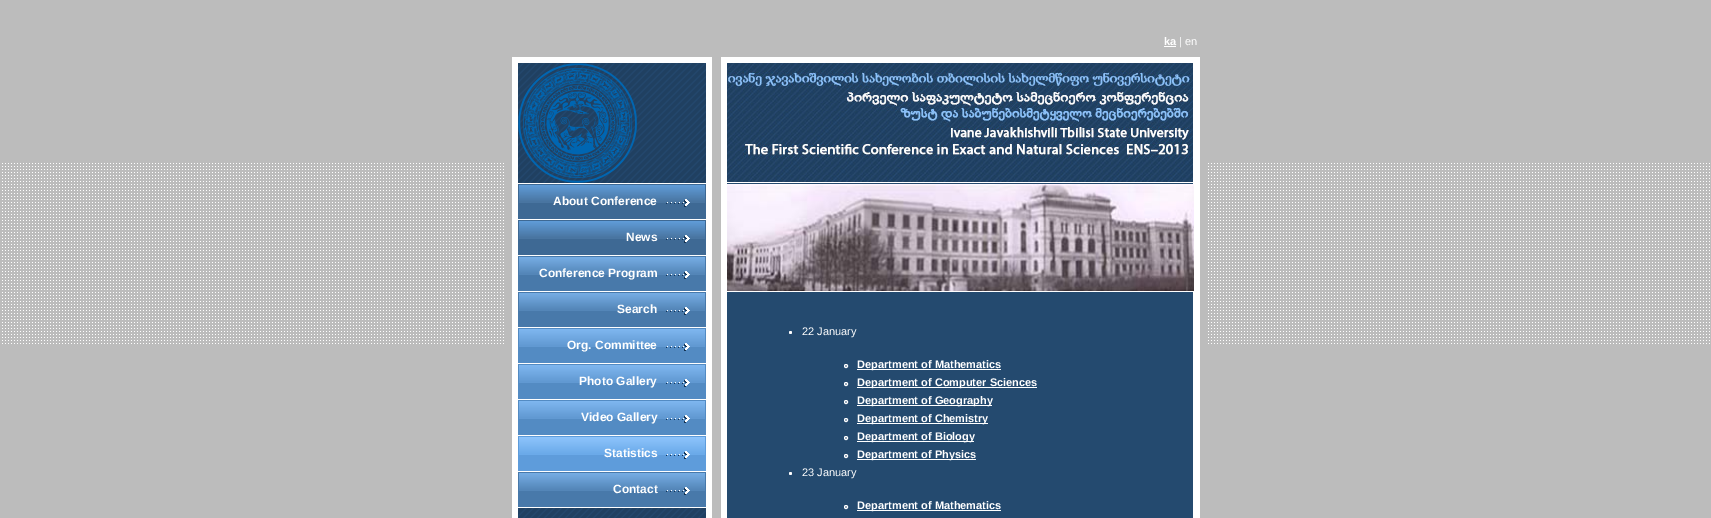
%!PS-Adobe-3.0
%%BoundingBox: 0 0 1711 518
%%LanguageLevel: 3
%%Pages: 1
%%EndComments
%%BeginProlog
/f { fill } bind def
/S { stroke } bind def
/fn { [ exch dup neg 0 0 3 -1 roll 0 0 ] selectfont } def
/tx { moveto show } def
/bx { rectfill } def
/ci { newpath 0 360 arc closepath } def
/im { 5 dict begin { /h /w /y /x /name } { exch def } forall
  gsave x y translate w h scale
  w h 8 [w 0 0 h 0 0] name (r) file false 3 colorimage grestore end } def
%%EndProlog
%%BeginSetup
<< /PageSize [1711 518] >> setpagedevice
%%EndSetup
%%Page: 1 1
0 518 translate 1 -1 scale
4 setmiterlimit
0.737 setgray
0 0 1711 518 bx
(image0.raw) 2 163 1708 181 im
/LiberationSans-Bold 11 fn
1 setgray
(ka) 1164 45 tx
1164 46 12 1 bx
/LiberationSans-Regular 11 fn
(| en) 1179 45 tx
(image1.raw) 506 57 700 461 im
(image2.raw) 518 57 675 6 im
518 183 188 1 bx
(image3.raw) 518 63 119 120 im
727 182 466 1 bx
(image4.raw) 727 63 466 119 im
(image5.raw) 518 184 188 35 im
518 219 188 1 bx
(image6.raw) 666 199 24 8 im
/LiberationSans-Bold 12 fn
(About Conference) 553 205 tx
(image5.raw) 518 220 188 35 im
518 255 188 1 bx
(image6.raw) 666 235 24 8 im
(News) 626 241 tx
(image7.raw) 518 256 188 35 im
518 291 188 1 bx
(image8.raw) 666 271 24 8 im
(Conference Program) 539 277 tx
(image7.raw) 518 292 188 35 im
518 327 188 1 bx
(image8.raw) 666 307 24 8 im
(Search) 617 313 tx
(image9.raw) 518 328 188 35 im
518 363 188 1 bx
(image10.raw) 666 343 24 8 im
(Org. Committee) 567 349 tx
(image9.raw) 518 364 188 35 im
518 399 188 1 bx
(image10.raw) 666 379 24 8 im
(Photo Gallery) 579 385 tx
(image9.raw) 518 400 188 35 im
518 435 188 1 bx
(image10.raw) 666 415 24 8 im
(Video Gallery) 581 421 tx
(image11.raw) 518 436 188 35 im
518 471 188 1 bx
(image12.raw) 666 451 24 8 im
(Statistics) 604 457 tx
(image7.raw) 518 472 188 35 im
518 507 188 1 bx
(image8.raw) 666 487 24 8 im
(Contact) 613 493 tx
(image13.raw) 727 184 467 107 im
727 291 466 1 bx
790.5 332.5 1.5 ci f
/LiberationSans-Regular 11 fn
(22 January) 802 335 tx
846 366 1.5 ci S
857 369 144 1 bx
/LiberationSans-Bold 11 fn
(Department of Mathematics) 857 368 tx
846 384 1.5 ci S
857 387 180 1 bx
(Department of Computer Sciences) 857 386 tx
846 402 1.5 ci S
857 405 135 1 bx
(Department of Geography) 857 404 tx
846 420 1.5 ci S
857 423 131 1 bx
(Department of Chemistry) 857 422 tx
846 438 1.5 ci S
857 441 117 1 bx
(Department of Biology) 857 440 tx
846 456 1.5 ci S
857 459 119 1 bx
(Department of Physics) 857 458 tx
790.5 473.5 1.5 ci f
/LiberationSans-Regular 11 fn
(23 January) 802 476 tx
846 507 1.5 ci S
857 510 144 1 bx
/LiberationSans-Bold 11 fn
(Department of Mathematics) 857 509 tx
showpage
%%EOF
